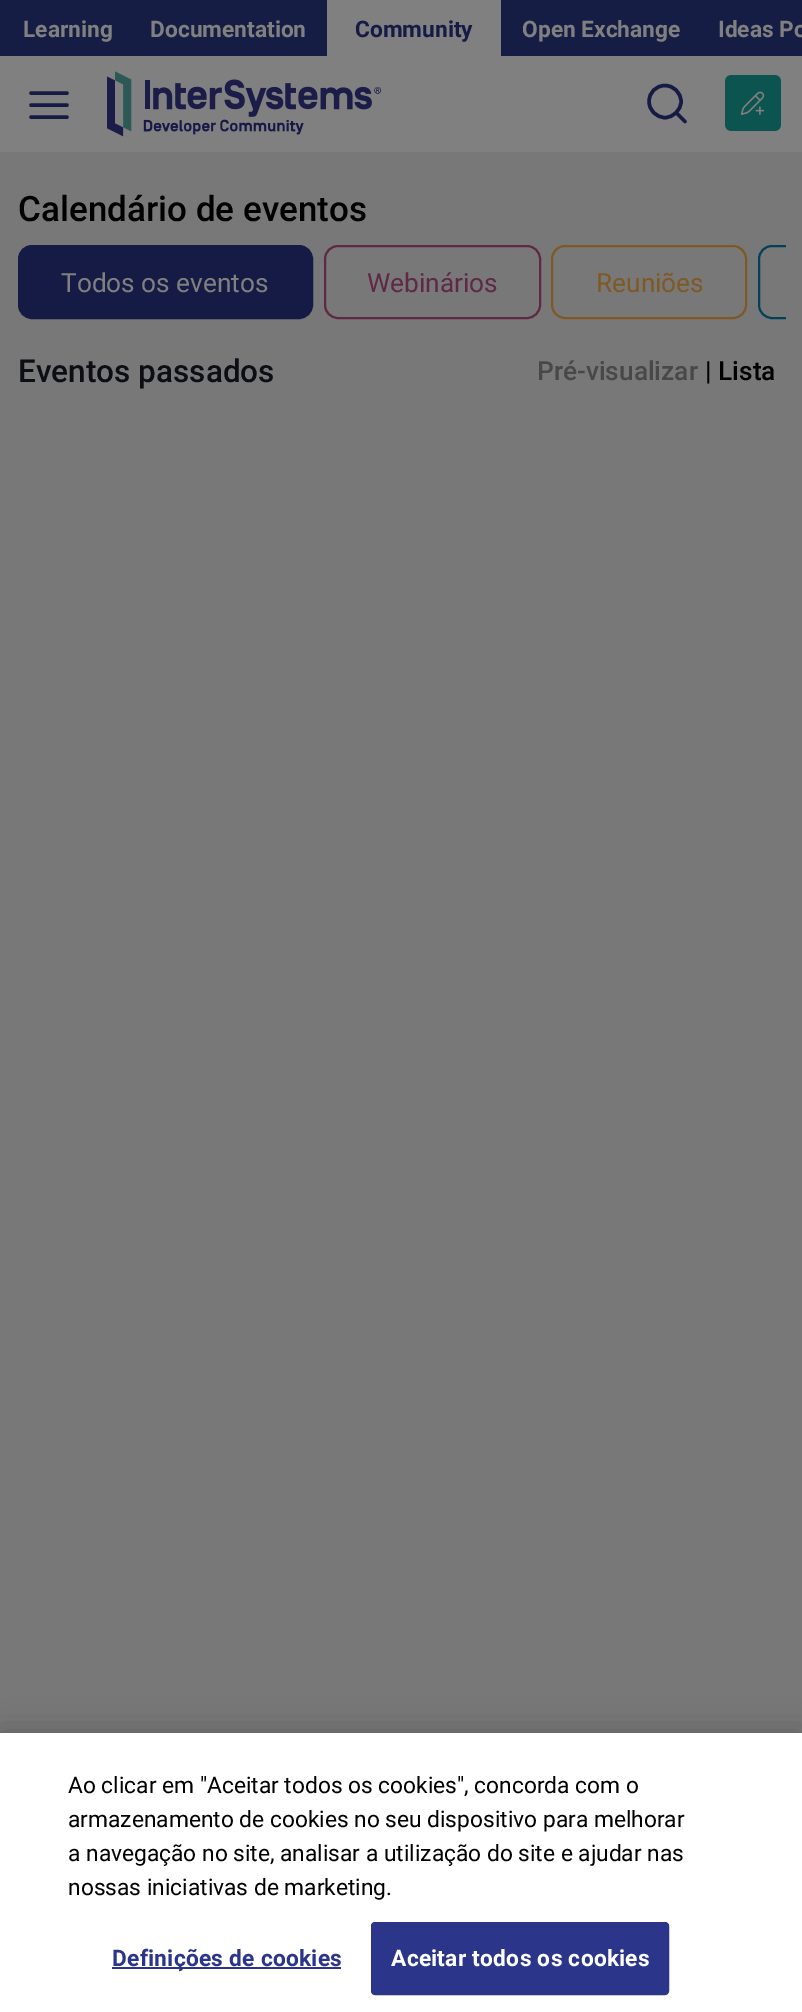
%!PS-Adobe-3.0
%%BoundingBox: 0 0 802 2012
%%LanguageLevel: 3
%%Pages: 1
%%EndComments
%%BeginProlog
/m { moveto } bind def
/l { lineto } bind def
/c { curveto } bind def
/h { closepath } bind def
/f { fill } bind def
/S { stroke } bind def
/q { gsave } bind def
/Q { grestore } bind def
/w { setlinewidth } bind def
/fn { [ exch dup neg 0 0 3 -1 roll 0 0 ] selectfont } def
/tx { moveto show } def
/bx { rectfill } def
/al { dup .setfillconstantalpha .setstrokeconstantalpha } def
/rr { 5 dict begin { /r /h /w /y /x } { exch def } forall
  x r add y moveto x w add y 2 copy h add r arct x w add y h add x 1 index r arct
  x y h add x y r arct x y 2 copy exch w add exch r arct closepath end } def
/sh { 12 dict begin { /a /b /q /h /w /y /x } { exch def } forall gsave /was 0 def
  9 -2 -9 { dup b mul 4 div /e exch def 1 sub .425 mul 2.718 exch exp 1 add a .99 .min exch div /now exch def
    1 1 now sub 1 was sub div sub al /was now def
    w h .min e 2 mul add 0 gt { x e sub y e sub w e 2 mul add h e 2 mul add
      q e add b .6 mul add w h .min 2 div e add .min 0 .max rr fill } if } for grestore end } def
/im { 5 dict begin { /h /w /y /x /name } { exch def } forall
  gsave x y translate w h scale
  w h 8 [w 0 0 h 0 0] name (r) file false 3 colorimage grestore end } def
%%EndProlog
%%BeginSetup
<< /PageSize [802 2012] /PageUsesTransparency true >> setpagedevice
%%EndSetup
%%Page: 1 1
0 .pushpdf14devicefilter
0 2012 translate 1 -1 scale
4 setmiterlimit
0.471 0.471 0.475 setrgbcolor
0 0 802 2012 bx
0.502 setgray
0 56 802 96 bx
0.082 0.114 0.267 setrgbcolor
0 0 802 56 bx
/Roboto-Bold 22.75 fn
0.502 setgray
(Learning) 23 37 tx
(Documentation) 150 37 tx
327 0 174 56 bx
0.086 0.106 0.271 setrgbcolor
(Community) 355 37 tx
0.502 setgray
(Open Exchange) 522 37 tx
(Ideas Po) 718 37 tx
0.086 0.106 0.271 setrgbcolor
3.5 w
1 setlinecap
1 setlinejoin
31 105 m 67 105 l 31 93 m 67 93 l 31 117 m 67 117 l S
(image0.raw) 107 71 275 66 im
685 121.5 m 676 112.5 l 681 101.5 m 681 110 673.5 117.5 665 117.5 c 656 117.5 649 110 649 101.5 c 649 92.5 656 85.5 665 85.5 c 673.5 85.5 681 92.5 681 101.5 c h S
(image1.raw) 725 75 56 56 im
/Roboto-Medium 35 fn
0 setgray
(Calendário de eventos) 18 221 tx
0.086 0.106 0.271 setrgbcolor
19 246 293 72 13 rr q f Q
2 w
0 setlinecap
0 setlinejoin
S
/Roboto-Regular 26.25 fn
0.502 setgray
(Todos os eventos) 61 292 tx
0.369 0.161 0.267 setrgbcolor
325 246 215 72 13 rr S
(Webinários) 367 292 tx
0.494 0.349 0.145 setrgbcolor
552 246 194 72 13 rr S
(Reuniões) 596 292 tx
q
18 245 768 91 rectclip
0.016 0.251 0.341 setrgbcolor
759 246 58 72 13 rr S
Q
/Roboto-Medium 31.5 fn
0.051 0.055 0.078 setrgbcolor
(Eventos passados) 18 382 tx
/Roboto-Medium 26.25 fn
0.282 0.282 0.286 setrgbcolor
(Pré-visualizar) 537 380 tx
0 setgray
(| Lista) 705 380 tx
0 1733 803 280 0 16 0.2 sh
1 setgray
0 1733 802 279 bx
/Roboto-Regular 22.75 fn
0 setgray
(Ao clicar em "Aceitar todos os cookies", concorda com o) 68 1793 tx
(armazenamento de cookies no seu dispositivo para melhorar) 68 1827 tx
(a navegação no site, analisar a utilização do site e ajudar nas) 68 1861 tx
(nossas iniciativas de marketing.) 68 1895 tx
0.169 0.208 0.537 setrgbcolor
112 1967 229 2 bx
/Roboto-Bold 22.75 fn
112 1966 m 0.25 0 (Definições de cookies) ashow
372 1923 296 71 3 rr q f Q
S
1 setgray
391 1966 m 0.25 0 (Aceitar todos os cookies) ashow
.poppdf14devicefilter showpage
%%EOF
